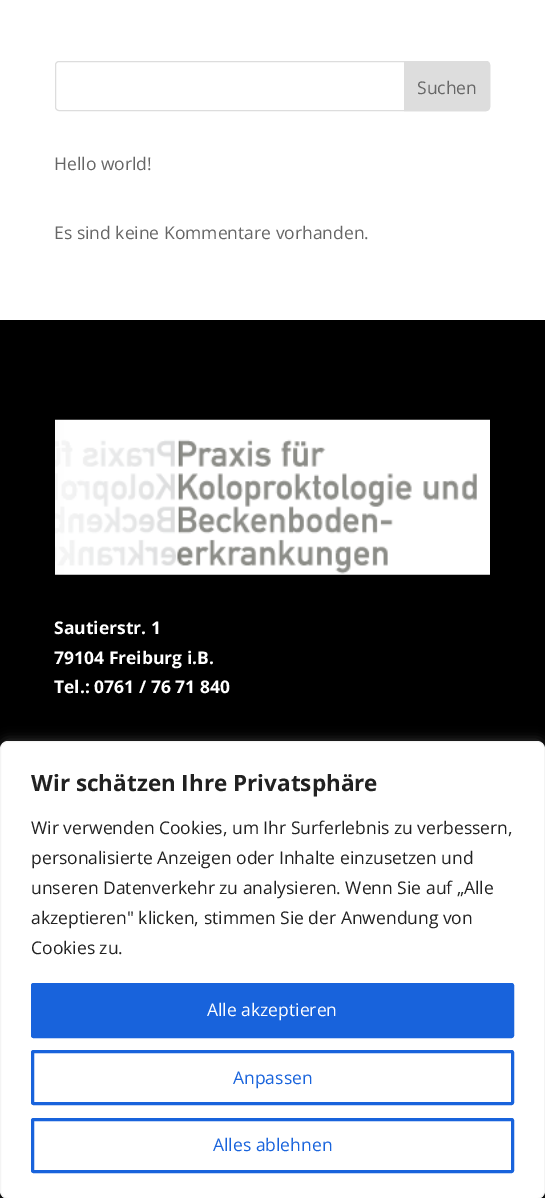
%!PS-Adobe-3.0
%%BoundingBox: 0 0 545 1198
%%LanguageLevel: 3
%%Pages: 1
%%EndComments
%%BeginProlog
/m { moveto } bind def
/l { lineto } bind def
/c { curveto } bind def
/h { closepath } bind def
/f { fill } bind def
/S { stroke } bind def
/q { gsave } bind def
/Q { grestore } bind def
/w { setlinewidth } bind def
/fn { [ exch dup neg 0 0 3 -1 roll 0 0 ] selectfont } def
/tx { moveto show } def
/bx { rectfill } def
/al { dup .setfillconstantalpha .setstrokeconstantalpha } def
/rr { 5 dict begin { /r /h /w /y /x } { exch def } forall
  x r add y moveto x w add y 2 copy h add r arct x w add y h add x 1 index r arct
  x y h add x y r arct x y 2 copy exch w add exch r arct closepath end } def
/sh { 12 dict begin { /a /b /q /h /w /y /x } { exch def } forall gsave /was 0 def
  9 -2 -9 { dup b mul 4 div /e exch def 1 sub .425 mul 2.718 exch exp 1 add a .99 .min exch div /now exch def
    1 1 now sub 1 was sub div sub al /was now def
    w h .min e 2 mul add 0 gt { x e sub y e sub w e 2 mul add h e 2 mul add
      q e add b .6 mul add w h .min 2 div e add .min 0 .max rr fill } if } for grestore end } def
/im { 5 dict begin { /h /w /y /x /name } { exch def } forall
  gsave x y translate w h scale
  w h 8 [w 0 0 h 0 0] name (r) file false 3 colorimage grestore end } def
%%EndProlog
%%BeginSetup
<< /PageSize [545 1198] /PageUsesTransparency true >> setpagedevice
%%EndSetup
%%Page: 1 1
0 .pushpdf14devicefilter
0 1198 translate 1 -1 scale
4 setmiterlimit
1 setgray
0 0 545 1198 bx
0.867 setgray
55.5 61.5 434 49 3.5 rr S
404.5 61.5 m 486 61.5 l 488 61.5 489.5 63 489.5 65 c 489.5 107 l 489.5 109 488 110.5 486 110.5 c 404.5 110.5 l h q f Q
S
/OpenSans-Regular 17.5 fn
0.4 setgray
(Suchen) 417 94 tx
(Hello world!) 54 170 tx
(Es sind keine Kommentare vorhanden.) 54 239 tx
0 setgray
0 320 545 878 bx
(image0.raw) 55 419 435 156 im
/OpenSans-Bold 17.5 fn
1 setgray
(Sautierstr. 1) 54 634 tx
(79104 Freiburg i.B.) 54 664 tx
(Tel.: 0761 / 76 71 840) 54 693 tx
0.675 0.671 0.671 setrgbcolor
0 740 545 458 8 6 0.3 sh
1 setgray
0.5 741.5 544 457 7.5 rr q f Q
0.957 setgray
S
/OpenSans-Bold 22.5 fn
0.129 setgray
(Wir schätzen Ihre Privatsphäre) 31 791 tx
/OpenSans-Regular 17.5 fn
(Wir verwenden Cookies, um Ihr Surferlebnis zu verbessern,) 31 834 tx
(personalisierte Anzeigen oder Inhalte einzusetzen und) 31 864 tx
(unseren Datenverkehr zu analysieren. Wenn Sie auf „Alle) 31 894 tx
(akzeptieren" klicken, stimmen Sie der Anwendung von) 31 924 tx
(Cookies zu.) 31 954 tx
0.094 0.388 0.863 setrgbcolor
32.5 984.5 480 52 1 rr q f Q
3 w
S
1 setgray
(Alle akzeptieren) 207 1016 tx
0.094 0.388 0.863 setrgbcolor
32.5 1051.5 480 52 1 rr S
(Anpassen) 233 1084 tx
32.5 1119.5 480 52 1 rr S
(Alles ablehnen) 213 1151 tx
.poppdf14devicefilter showpage
%%EOF
